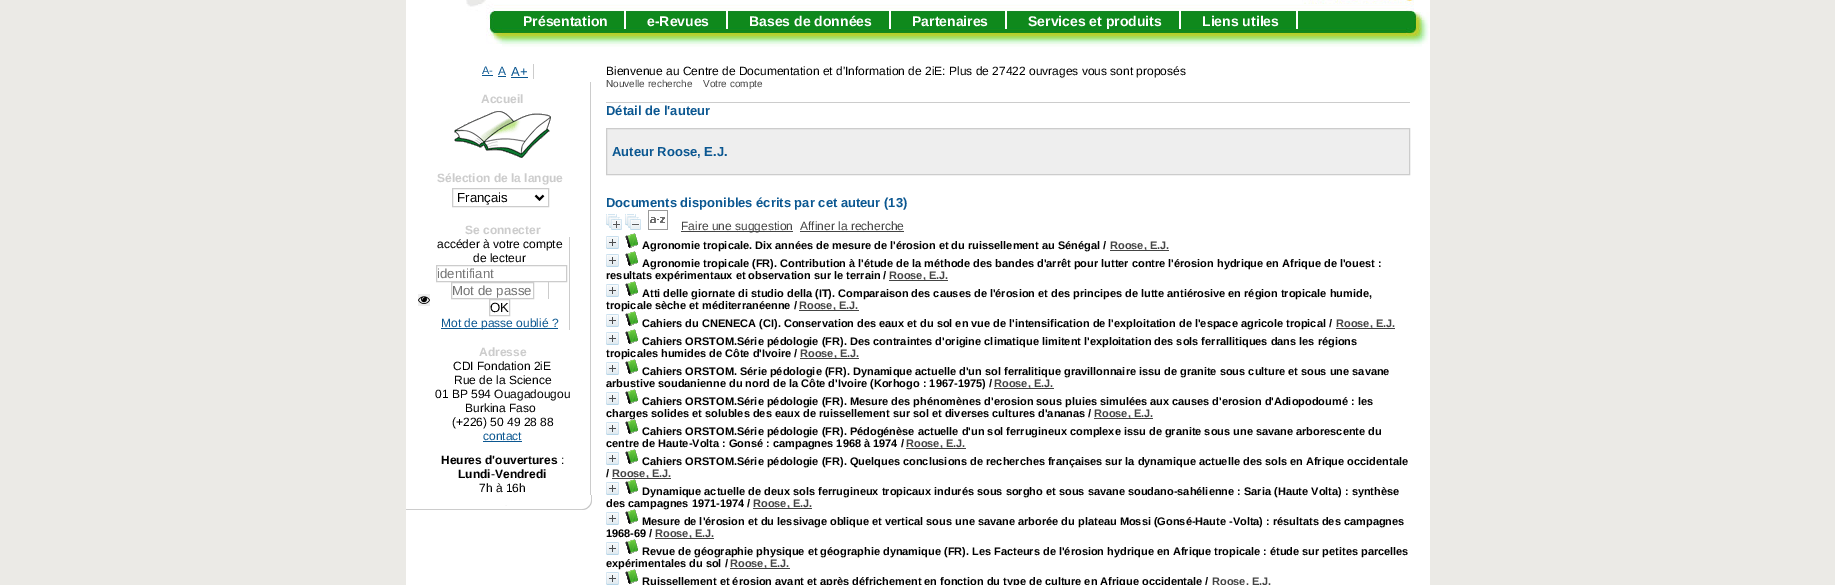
%!PS-Adobe-3.0
%%BoundingBox: 0 0 1835 585
%%LanguageLevel: 3
%%Pages: 1
%%EndComments
%%BeginProlog
/m { moveto } bind def
/l { lineto } bind def
/h { closepath } bind def
/f { fill } bind def
/S { stroke } bind def
/q { gsave } bind def
/Q { grestore } bind def
/w { setlinewidth } bind def
/fn { [ exch dup neg 0 0 3 -1 roll 0 0 ] selectfont } def
/tx { moveto show } def
/bx { rectfill } def
/im { 5 dict begin { /h /w /y /x /name } { exch def } forall
  gsave x y translate w h scale
  w h 8 [w 0 0 h 0 0] name (r) file false 3 colorimage grestore end } def
%%EndProlog
%%BeginSetup
<< /PageSize [1835 585] >> setpagedevice
%%EndSetup
%%Page: 1 1
0 585 translate 1 -1 scale
4 setmiterlimit
0.922 0.918 0.902 setrgbcolor
0 0 1835 585 bx
1 setgray
406 0 1024 585 bx
/LiberationSans-Bold 11 fn
0 setgray
(tropicale sèche et méditerranéenne /) 606 309 tx
(tropicales humides de Côte d'Ivoire /) 606 357 tx
(arbustive soudanienne du nord de la Côte d'Ivoire \(Korhogo : 1967-1975\) /) 606 387 tx
(charges solides et solubles des eaux de ruissellement sur sol et diverses cultures d'ananas /) 606 417 tx
(centre de Haute-Volta : Gonsé : campagnes 1968 à 1974 /) 606 447 tx
(/) 606 477 tx
(des campagnes 1971-1974 /) 606 507 tx
1 setgray
605 303 1 202 bx
(image0.raw) 406 495 186 15 im
0.8 setgray
533 64 1 15 bx
/LiberationSans-Regular 11 fn
0.043 0.341 0.569 setrgbcolor
(A-) 482 74 tx
482 75 11 1 bx
/LiberationSans-Regular 12 fn
(A) 498 75 tx
498 76 8 1 bx
/LiberationSans-Regular 13 fn
(A+) 511 76 tx
511 77 17 1 bx
0.8 setgray
590 82 1 413 bx
/LiberationSans-Bold 12 fn
(Accueil) 481 103 tx
(image1.raw) 454 111 97 47 im
(Sélection de la langue) 437 182 tx
452.5 188.5 96 18 rectstroke
0 setgray
2 w
535.5 195.5 m 539.5 199.5 l 543.5 195.5 l S
/LiberationSans-Regular 13.25 fn
(Français) 457 202 tx
/LiberationSans-Bold 12 fn
0.8 setgray
(Se connecter) 465 234 tx
569 237 1 93 bx
/LiberationSans-Regular 12 fn
0 setgray
(accéder à votre compte) 437 248 tx
(de lecteur) 473 262 tx
0.8 setgray
1 w
436.5 265.5 130 16 rectstroke
/LiberationSans-Regular 13.25 fn
0.459 setgray
(identifiant) 437 278 tx
0.8 setgray
548 282 1 17 bx
451.5 282.5 82 16 rectstroke
0.459 setgray
(Mot de passe) 452 295 tx
0.937 setgray
418 294 12 12 bx
(image2.raw) 418 296 12 8 im
0.8 setgray
489.5 299.5 20 16 rectstroke
0 setgray
(OK) 490 312 tx
0.043 0.341 0.569 setrgbcolor
441 328 117 1 bx
/LiberationSans-Regular 12 fn
(Mot de passe oublié ?) 441 327 tx
/LiberationSans-Bold 12 fn
0.8 setgray
(Adresse) 479 356 tx
/LiberationSans-Regular 12 fn
0 setgray
(CDI Fondation 2iE) 453 370 tx
(Rue de la Science) 454 384 tx
(01 BP 594 Ouagadougou) 435 398 tx
(Burkina Faso) 465 412 tx
(\(+226\) 50 49 28 88) 452 426 tx
0.043 0.341 0.569 setrgbcolor
(contact) 483 440 tx
483 441 39 1 bx
/LiberationSans-Bold 12 fn
0 setgray
(Heures d'ouvertures) 441 464 tx
/LiberationSans-Regular 12 fn
(:) 561 464 tx
/LiberationSans-Bold 12 fn
(Lundi) 458 478 tx
/LiberationSans-Regular 12 fn
(-) 491 478 tx
/LiberationSans-Bold 12 fn
(Vendredi) 495 478 tx
/LiberationSans-Regular 12 fn
(7h à 16h) 479 492 tx
(image3.raw) 466 0 964 47 im
/LiberationSans-Bold 14 fn
1 setgray
(Présentation) 523 26 tx
624 10 2 19 bx
(e-Revues) 647 26 tx
726 10 2 19 bx
(Bases de données) 749 26 tx
889 10 2 19 bx
(Partenaires) 912 26 tx
1005 10 2 19 bx
(Services et produits) 1028 26 tx
1179 10 2 19 bx
(Liens utiles) 1202 26 tx
1296 10 2 19 bx
0.8 setgray
606 102 804 1 bx
/LiberationSans-Regular 10 fn
0.267 setgray
(Nouvelle recherche) 606 87 tx
(Votre compte) 703 87 tx
/LiberationSans-Bold 13 fn
0.043 0.341 0.569 setrgbcolor
(Détail de l'auteur) 606 115 tx
0.933 setgray
606.5 128.5 m 1409.5 128.5 l 1409.5 174.5 l 606.5 174.5 l h q f Q
0.8 setgray
S
0.043 0.341 0.569 setrgbcolor
(Auteur Roose, E.J.) 612 156 tx
(Documents disponibles écrits par cet auteur \(13\)) 606 207 tx
(image4.raw) 606 214 16 16 im
(image5.raw) 625 214 16 16 im
(image6.raw) 648 210 20 20 im
0.267 setgray
681 231 112 1 bx
/LiberationSans-Regular 12 fn
(Faire une suggestion) 681 230 tx
(Affiner la recherche) 800 230 tx
800 231 104 1 bx
(image7.raw) 606 236 13 13 im
(image8.raw) 625 233 13 15 im
/LiberationSans-Bold 11 fn
0 setgray
(Agronomie tropicale. Dix années de mesure de l'érosion et du ruissellement au Sénégal /) 642 249 tx
0.267 setgray
1110 250 59 1 bx
(Roose, E.J.) 1110 249 tx
(image7.raw) 606 254 13 13 im
(image8.raw) 625 251 13 15 im
0 setgray
(Agronomie tropicale \(FR\). Contribution à l'étude de la méthode des bandes d'arrêt pour lutter contre l'érosion hydrique en Afrique de l'ouest :) 642 267 tx
(resultats expérimentaux et observation sur le terrain /) 606 279 tx
0.267 setgray
889 280 59 1 bx
(Roose, E.J.) 889 279 tx
(image7.raw) 606 284 13 13 im
(image8.raw) 625 281 13 15 im
0 setgray
(Atti delle giornate di studio della \(IT\). Comparaison des causes de l'érosion et des principes de lutte antiérosive en région tropicale humide,) 642 297 tx
0.267 setgray
799 310 60 1 bx
(Roose, E.J.) 799 309 tx
(image7.raw) 606 314 13 13 im
(image8.raw) 625 311 13 15 im
0 setgray
(Cahiers du CNENECA \(CI\). Conservation des eaux et du sol en vue de l'intensification de l'exploitation de l'espace agricole tropical /) 642 327 tx
0.267 setgray
1336 328 59 1 bx
(Roose, E.J.) 1336 327 tx
(image7.raw) 606 332 13 13 im
(image8.raw) 625 329 13 15 im
0 setgray
(Cahiers ORSTOM.Série pédologie \(FR\). Des contraintes d'origine climatique limitent l'exploitation des sols ferrallitiques dans les régions) 642 345 tx
0.267 setgray
800 358 59 1 bx
(Roose, E.J.) 800 357 tx
(image7.raw) 606 362 13 13 im
(image8.raw) 625 359 13 15 im
0 setgray
(Cahiers ORSTOM. Série pédologie \(FR\). Dynamique actuelle d'un sol ferralitique gravillonnaire issu de granite sous culture et sous une savane) 642 375 tx
0.267 setgray
994 388 60 1 bx
(Roose, E.J.) 994 387 tx
(image7.raw) 606 392 13 13 im
(image8.raw) 625 389 13 15 im
0 setgray
(Cahiers ORSTOM.Série pédologie \(FR\). Mesure des phénomènes d'erosion sous pluies simulées aux causes d'erosion d'Adiopodoumé : les) 642 405 tx
0.267 setgray
1094 418 59 1 bx
(Roose, E.J.) 1094 417 tx
(image7.raw) 606 422 13 13 im
(image9.raw) 625 419 13 15 im
0 setgray
(Cahiers ORSTOM.Série pédologie \(FR\). Pédogénèse actuelle d'un sol ferrugineux complexe issu de granite sous une savane arborescente du) 642 435 tx
0.267 setgray
906 448 60 1 bx
(Roose, E.J.) 906 447 tx
(image7.raw) 606 452 13 13 im
(image8.raw) 625 449 13 15 im
0 setgray
(Cahiers ORSTOM.Série pédologie \(FR\). Quelques conclusions de recherches françaises sur la dynamique actuelle des sols en Afrique occidentale) 642 465 tx
0.267 setgray
612 478 59 1 bx
(Roose, E.J.) 612 477 tx
(image7.raw) 606 482 13 13 im
(image8.raw) 625 479 13 15 im
0 setgray
(Dynamique actuelle de deux sols ferrugineux tropicaux indurés sous sorgho et sous savane soudano-sahélienne : Saria \(Haute Volta\) : synthèse) 642 495 tx
0.267 setgray
753 508 59 1 bx
(Roose, E.J.) 753 507 tx
(image7.raw) 606 512 13 13 im
(image8.raw) 625 509 13 15 im
0 setgray
(Mesure de l'érosion et du lessivage oblique et vertical sous une savane arborée du plateau Mossi \(Gonsé-Haute -Volta\) : résultats des campagnes) 642 525 tx
(1968-69 /) 606 537 tx
0.267 setgray
655 538 59 1 bx
(Roose, E.J.) 655 537 tx
(image7.raw) 606 542 13 13 im
(image8.raw) 625 539 13 15 im
0 setgray
(Revue de géographie physique et géographie dynamique \(FR\). Les Facteurs de l'érosion hydrique en Afrique tropicale : étude sur petites parcelles) 642 555 tx
(expérimentales du sol /) 606 567 tx
0.267 setgray
730 568 60 1 bx
(Roose, E.J.) 730 567 tx
(image7.raw) 606 572 13 13 im
(image8.raw) 625 569 13 15 im
0 setgray
(Ruissellement et érosion avant et après défrichement en fonction du type de culture en Afrique occidentale /) 642 585 tx
0.267 setgray
(Roose, E.J.) 1212 585 tx
/LiberationSans-Regular 12 fn
0 setgray
(Bienvenue au Centre de Documentation et d'Information de 2iE: Plus de 27422 ouvrages vous sont proposés) 606 75 tx
showpage
%%EOF
